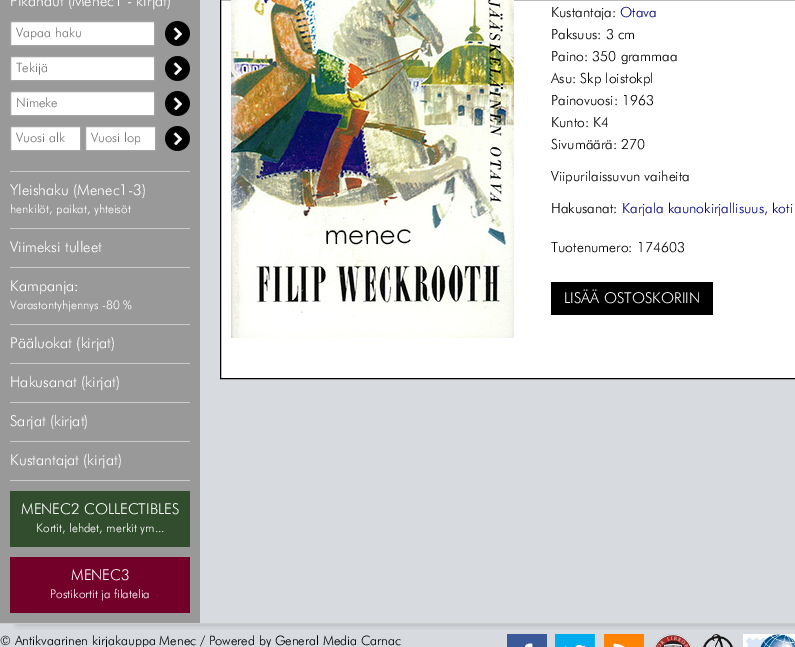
%!PS-Adobe-3.0
%%BoundingBox: 0 0 795 647
%%LanguageLevel: 3
%%Pages: 1
%%EndComments
%%BeginProlog
/m { moveto } bind def
/l { lineto } bind def
/h { closepath } bind def
/f { fill } bind def
/S { stroke } bind def
/q { gsave } bind def
/Q { grestore } bind def
/fn { [ exch dup neg 0 0 3 -1 roll 0 0 ] selectfont } def
/tx { moveto show } def
/bx { rectfill } def
/al { dup .setfillconstantalpha .setstrokeconstantalpha } def
/rr { 5 dict begin { /r /h /w /y /x } { exch def } forall
  x r add y moveto x w add y 2 copy h add r arct x w add y h add x 1 index r arct
  x y h add x y r arct x y 2 copy exch w add exch r arct closepath end } def
/sh { 12 dict begin { /a /b /q /h /w /y /x } { exch def } forall gsave /was 0 def
  9 -2 -9 { dup b mul 4 div /e exch def 1 sub .425 mul 2.718 exch exp 1 add a .99 .min exch div /now exch def
    1 1 now sub 1 was sub div sub al /was now def
    w h .min e 2 mul add 0 gt { x e sub y e sub w e 2 mul add h e 2 mul add
      q e add b .6 mul add w h .min 2 div e add .min 0 .max rr fill } if } for grestore end } def
/im { 5 dict begin { /h /w /y /x /name } { exch def } forall
  gsave x y translate w h scale
  w h 8 [w 0 0 h 0 0] name (r) file false 3 colorimage grestore end } def
%%EndProlog
%%BeginSetup
<< /PageSize [795 647] /PageUsesTransparency true >> setpagedevice
%%EndSetup
%%Page: 1 1
0 .pushpdf14devicefilter
0 647 translate 1 -1 scale
4 setmiterlimit
0.843 0.855 0.875 setrgbcolor
0 0 795 647 bx
q
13 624 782 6 rectclip
0.196 setgray
18 -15 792 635 0 5 0.75 sh
Q
0.8 setgray
0 623 795 1 bx
0.6 setgray
0 0 200 623 bx
/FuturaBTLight-Light 15 fn
1 setgray
(Pikahaut \(Menec1 - kirjat\)) 10 6 tx
10.5 21.5 m 154.5 21.5 l 154.5 45.5 l 10.5 45.5 l h q f Q
0.639 setgray
S
/FuturaBTLight-Light 13 fn
0.459 setgray
(Vapaa haku) 16 37 tx
(image0.raw) 165 21 25 25 im
1 setgray
10.5 56.5 m 154.5 56.5 l 154.5 80.5 l 10.5 80.5 l h q f Q
0.639 setgray
S
0.459 setgray
(Tekijä) 16 72 tx
(image0.raw) 165 56 25 25 im
1 setgray
10.5 91.5 m 154.5 91.5 l 154.5 115.5 l 10.5 115.5 l h q f Q
0.639 setgray
S
0.459 setgray
(Nimeke) 16 107 tx
(image0.raw) 165 91 25 25 im
1 setgray
10.5 126.5 m 80.5 126.5 l 80.5 150.5 l 10.5 150.5 l h q f Q
0.639 setgray
S
0.459 setgray
(Vuosi alk) 16 142 tx
1 setgray
85.5 126.5 m 155.5 126.5 l 155.5 150.5 l 85.5 150.5 l h q f Q
0.639 setgray
S
q
91 131 49 16 rectclip
0.459 setgray
(Vuosi lop) 91 142 tx
Q
(image0.raw) 165 126 25 25 im
0.8 setgray
10 171 180 1 bx
/FuturaBTLight-Light 15 fn
1 setgray
(Yleishaku \(Menec1-3\)) 10 195 tx
/FuturaBTLight-Light 12 fn
(henkilöt, paikat, yhteisöt) 10 213 tx
0.8 setgray
10 228 180 1 bx
/FuturaBTLight-Light 15 fn
1 setgray
(Viimeksi tulleet) 10 252 tx
0.8 setgray
10 267 180 1 bx
1 setgray
(Kampanja:) 10 291 tx
/FuturaBTLight-Light 12 fn
(Varastontyhjennys -80 %) 10 309 tx
0.8 setgray
10 324 180 1 bx
/FuturaBTLight-Light 15 fn
1 setgray
(Pääluokat \(kirjat\)) 10 348 tx
0.8 setgray
10 363 180 1 bx
1 setgray
(Hakusanat \(kirjat\)) 10 387 tx
0.8 setgray
10 402 180 1 bx
1 setgray
(Sarjat \(kirjat\)) 10 426 tx
0.8 setgray
10 441 180 1 bx
1 setgray
(Kustantajat \(kirjat\)) 10 465 tx
0.8 setgray
10 480 180 1 bx
0.196 0.298 0.18 setrgbcolor
10 491 180 56 bx
1 setgray
(MENEC2 COLLECTIBLES) 21 514 tx
/FuturaBTLight-Light 12 fn
(Kortit, lehdet, merkit ym...) 36 532 tx
0.451 0 0.161 setrgbcolor
10 557 180 56 bx
/FuturaBTLight-Light 15 fn
1 setgray
(MENEC3) 71 580 tx
/FuturaBTLight-Light 12 fn
(Postikortit ja filatelia) 50 598 tx
220.5 -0.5 m 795.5 -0.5 l 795.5 378.5 l 220.5 378.5 l h q f Q
0 setgray
S
(image1.raw) 231 0 283 338 im
/FuturaBTLight-Light 14 fn
(Kustantaja:) 551 17 tx
0 0 0.502 setrgbcolor
(Otava) 620 17 tx
0 setgray
(Paksuus: 3 cm) 551 39 tx
(Paino: 350 grammaa) 551 61 tx
(Asu: Skp loistokpl) 551 83 tx
(Painovuosi: 1963) 551 105 tx
(Kunto: K4) 551 127 tx
(Sivumäärä: 270) 551 149 tx
(Viipurilaissuvun vaiheita) 551 181 tx
(Hakusanat:) 551 213 tx
0 0 0.502 setrgbcolor
(Karjala kaunokirjallisuus, koti) 622 213 tx
0 setgray
(Tuotenumero: 174603) 551 252 tx
551 282 162 33 bx
/FuturaBTLight-Light 15 fn
1 setgray
(LISÄÄ OSTOSKORIIN) 564 303 tx
/FuturaBTLight-Light 13 fn
0 setgray
(© Antikvaarinen kirjakauppa Menec / Powered by General Media Carnac) 0 645 tx
(image2.raw) 507 634 40 13 im
(image3.raw) 555 634 40 13 im
(image4.raw) 604 634 40 13 im
(image5.raw) 654 634 38 13 im
(image6.raw) 703 634 30 13 im
(image7.raw) 743 634 52 13 im
.poppdf14devicefilter showpage
%%EOF
